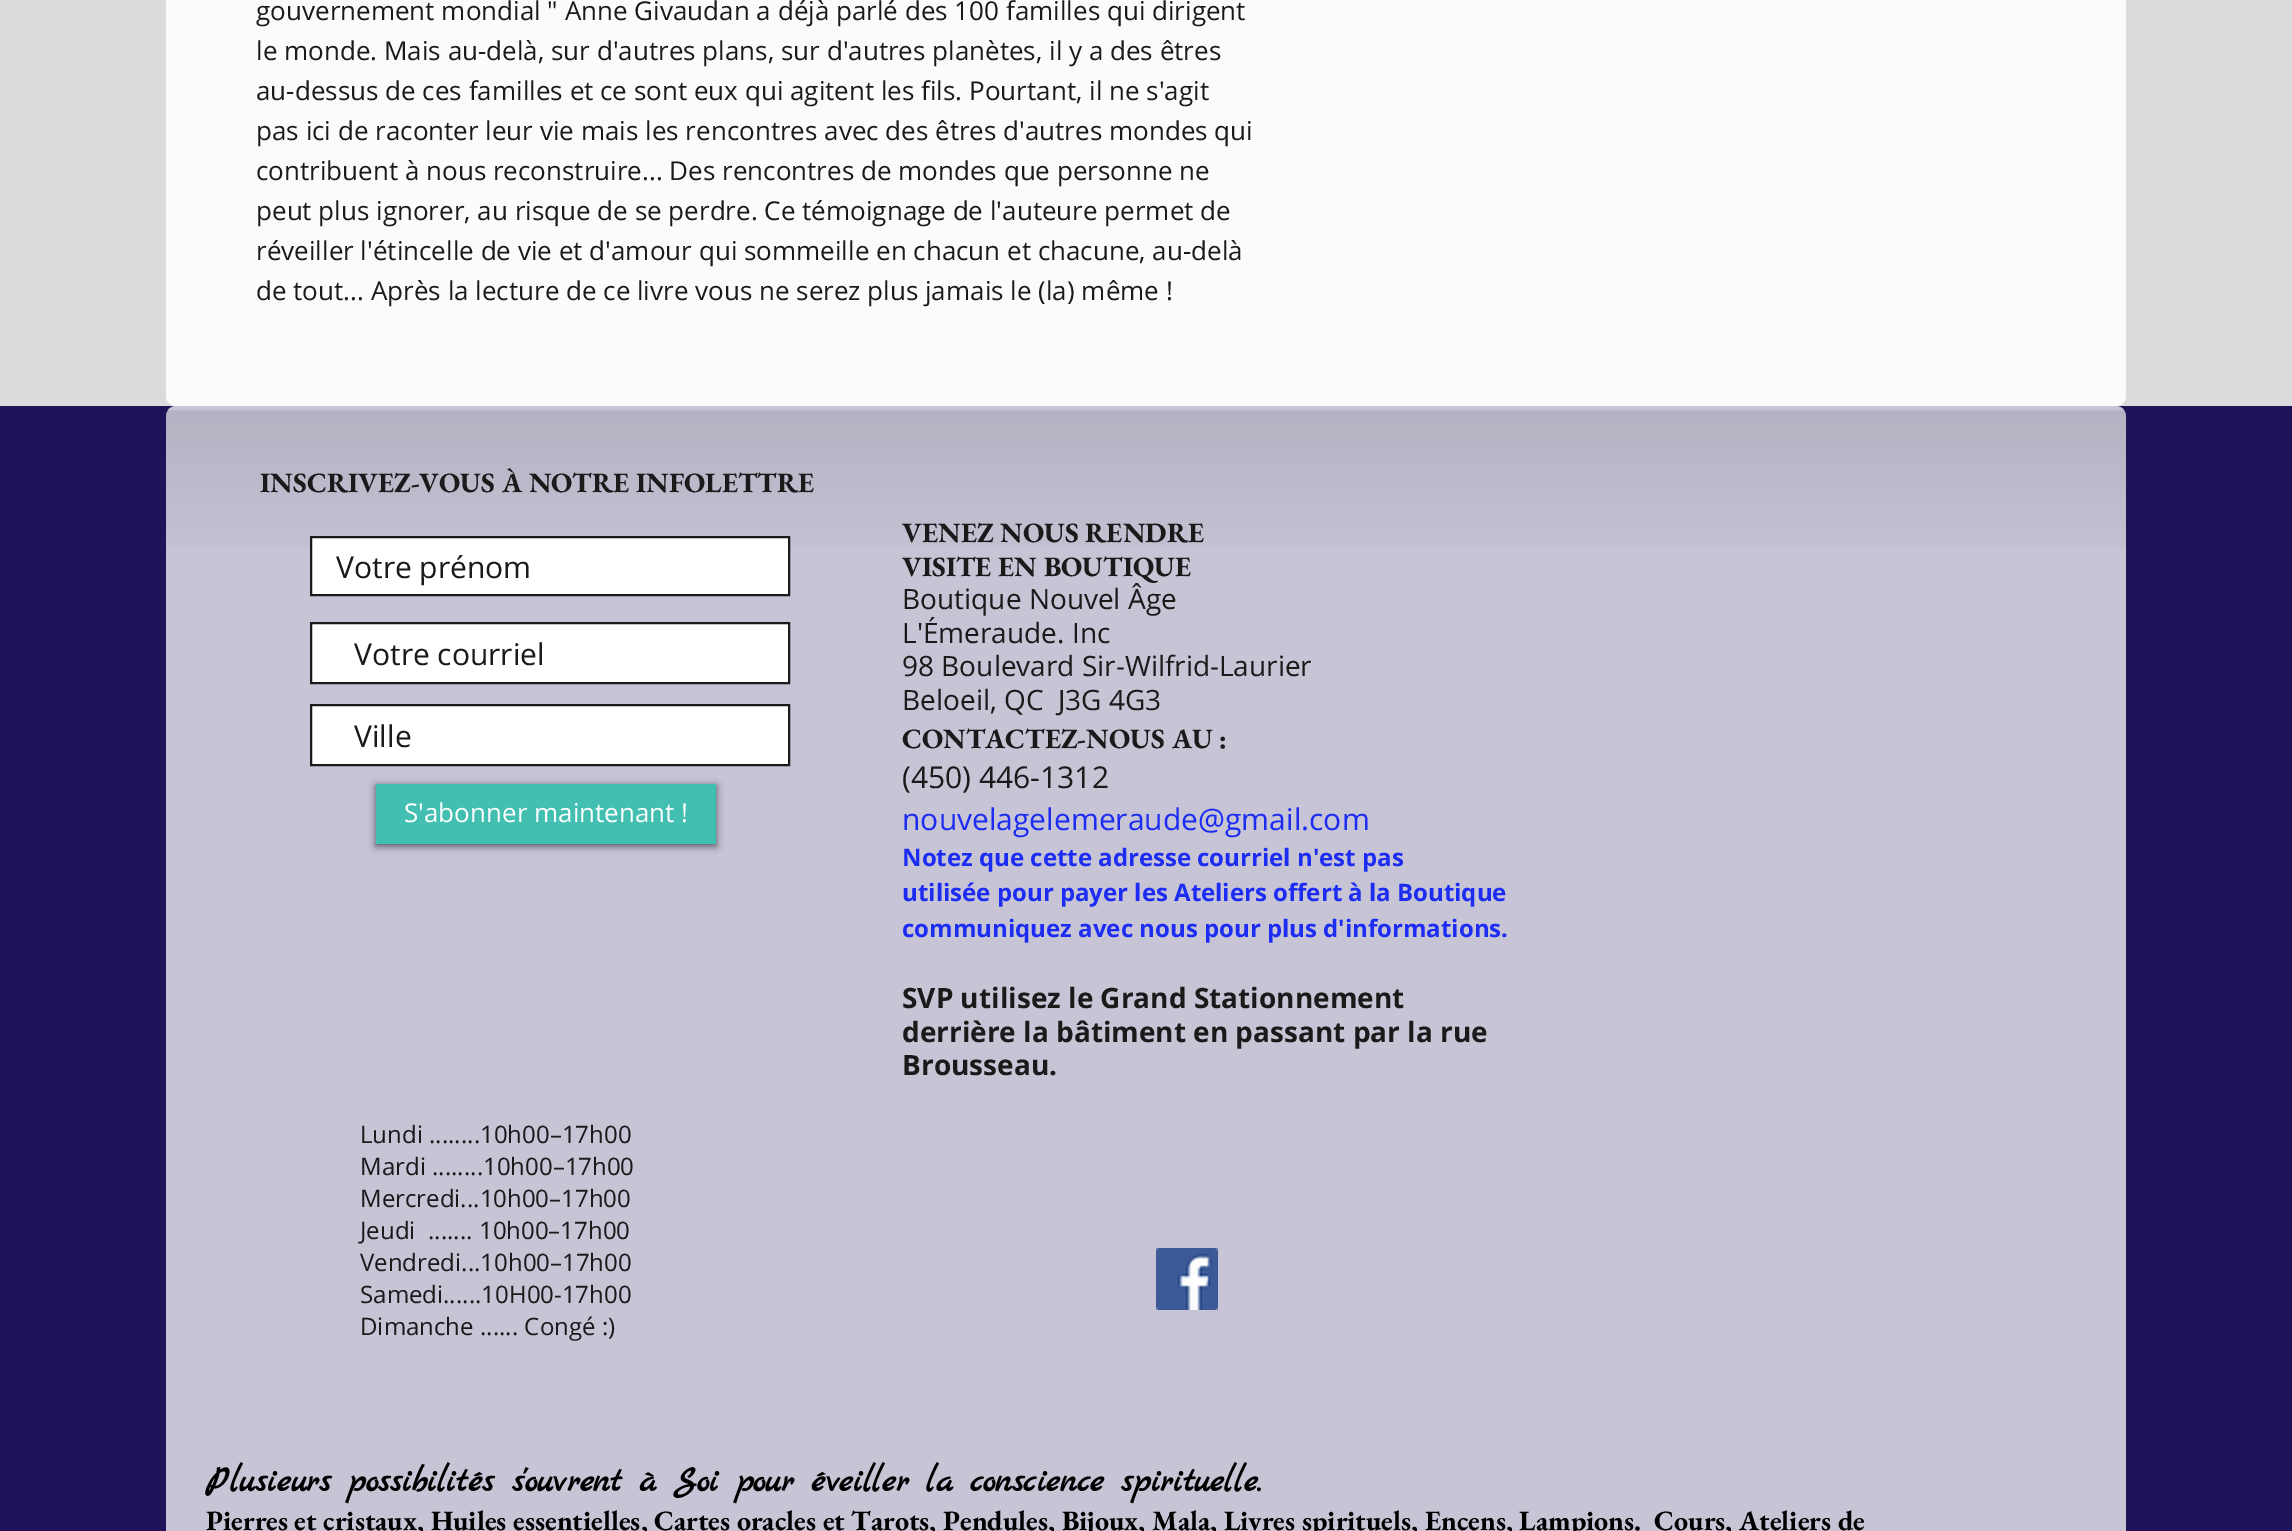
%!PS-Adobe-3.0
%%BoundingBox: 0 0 2292 1531
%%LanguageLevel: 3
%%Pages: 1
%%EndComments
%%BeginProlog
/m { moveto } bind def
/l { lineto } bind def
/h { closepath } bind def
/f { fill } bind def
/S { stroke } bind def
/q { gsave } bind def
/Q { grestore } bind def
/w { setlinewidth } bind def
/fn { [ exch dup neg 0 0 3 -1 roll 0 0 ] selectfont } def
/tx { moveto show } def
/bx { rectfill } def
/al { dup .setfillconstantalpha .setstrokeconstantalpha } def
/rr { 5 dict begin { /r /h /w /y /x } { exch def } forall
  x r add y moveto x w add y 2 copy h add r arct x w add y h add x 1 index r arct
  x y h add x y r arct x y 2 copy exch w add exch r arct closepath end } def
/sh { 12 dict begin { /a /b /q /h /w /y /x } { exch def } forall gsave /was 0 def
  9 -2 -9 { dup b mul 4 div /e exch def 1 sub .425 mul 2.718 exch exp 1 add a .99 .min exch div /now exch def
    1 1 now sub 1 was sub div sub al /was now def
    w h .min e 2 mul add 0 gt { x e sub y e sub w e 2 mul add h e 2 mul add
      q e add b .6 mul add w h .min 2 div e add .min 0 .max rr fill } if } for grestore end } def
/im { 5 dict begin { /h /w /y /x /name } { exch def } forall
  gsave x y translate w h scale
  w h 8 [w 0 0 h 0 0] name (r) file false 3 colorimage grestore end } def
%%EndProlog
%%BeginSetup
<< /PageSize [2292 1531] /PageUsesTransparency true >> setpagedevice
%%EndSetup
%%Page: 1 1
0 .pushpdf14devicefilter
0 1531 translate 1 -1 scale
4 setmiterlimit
0.859 setgray
0 0 2292 1531 bx
0.984 setgray
166 -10 1960 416 10 rr f
/OpenSans-Regular 26 fn
0.102 setgray
(gouvernement mondial " Anne Givaudan a déjà parlé des 100 familles qui dirigent) 256 20 tx
(le monde. Mais au-delà, sur d'autres plans, sur d'autres planètes, il y a des êtres) 256 60 tx
(au-dessus de ces familles et ce sont eux qui agitent les fils. Pourtant, il ne s'agit) 256 100 tx
(pas ici de raconter leur vie mais les rencontres avec des êtres d'autres mondes qui) 256 140 tx
(contribuent à nous reconstruire... Des rencontres de mondes que personne ne) 256 180 tx
(peut plus ignorer, au risque de se perdre. Ce témoignage de l'auteure permet de) 256 220 tx
(réveiller l'étincelle de vie et d'amour qui sommeille en chacun et chacune, au-delà) 256 260 tx
(de tout... Après la lecture de ce livre vous ne serez plus jamais le \(la\) même !) 256 300 tx
0.125 0.075 0.349 setrgbcolor
0 406 2292 1125 bx
0.78 0.769 0.839 setrgbcolor
166 406 1960 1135 10 rr f
(image0.raw) 166 410 1960 137 im
/EBGaramond-Bold 28 fn
0.102 setgray
(INSCRIVEZ-VOUS À NOTRE INFOLETTRE) 260 492 tx
1 setgray
311 537 m 789 537 l 789 595 l 311 595 l h q f Q
0.102 setgray
2 w
S
/OpenSans-Regular 30 fn
(Votre prénom) 336 578 tx
1 setgray
311 623 m 789 623 l 789 683 l 311 683 l h q f Q
0.102 setgray
S
(Votre courriel) 354 665 tx
1 setgray
311 705 m 789 705 l 789 765 l 311 765 l h q f Q
0.102 setgray
S
(Ville) 354 747 tx
0 setgray
376 786 340 60 0 4 0.6 sh
0.259 0.749 0.69 setrgbcolor
376 784 340 60 bx
/OpenSans-Regular 26 fn
1 setgray
(S'abonner maintenant !) 404 822 tx
/EBGaramond-Bold 28 fn
0.102 setgray
(VENEZ NOUS RENDRE) 902 542 tx
(VISITE EN BOUTIQUE) 902 576 tx
/OpenSans-Regular 28 fn
(Boutique Nouvel Âge) 902 609 tx
(L'Émeraude. Inc) 902 643 tx
(98 Boulevard Sir-Wilfrid-Laurier) 902 676 tx
(Beloeil, QC  J3G 4G3) 902 710 tx
/EBGaramond-Bold 28 fn
(CONTACTEZ-NOUS AU :) 902 748 tx
/OpenSans-Regular 30 fn
(\(450\) 446-1312) 902 788 tx
0.114 0.173 0.953 setrgbcolor
(nouvelagelemeraude@gmail.com) 902 830 tx
/OpenSans-Bold 24 fn
(Notez que cette adresse courriel n'est pas) 902 866 tx
(utilisée pour payer les Ateliers offert à la Boutique) 902 901 tx
(communiquez avec nous pour plus d'informations.) 902 937 tx
/OpenSans-Bold 28 fn
0.102 setgray
(SVP utilisez le Grand Stationnement) 902 1008 tx
(derrière la bâtiment en passant par la rue) 902 1042 tx
(Brousseau.) 902 1075 tx
/OpenSans-Regular 24 fn
(Lundi ........10h00–17h00) 360 1143 tx
(Mardi ........10h00–17h00) 360 1175 tx
(Mercredi...10h00–17h00) 360 1207 tx
(Jeudi  ....... 10h00–17h00) 360 1239 tx
(Vendredi...10h00–17h00) 360 1271 tx
(Samedi......10H00-17h00) 360 1303 tx
(Dimanche ...... Congé :\)) 360 1335 tx
(image1.raw) 1156 1248 62 62 im
/MarckScript-Bold 36 fn
0 setgray
(Plusieurs possibilités s'ouvrent à Soi pour éveiller la conscience spirituelle.) 206 1491 tx
/EBGaramond-Bold 28 fn
(Pierres et cristaux, Huiles essentielles, Cartes oracles et Tarots, Pendules, Bijoux, Mala, Livres spirituels, Encens, Lampions.  Cours, Ateliers de) 206 1530 tx
.poppdf14devicefilter showpage
%%EOF
